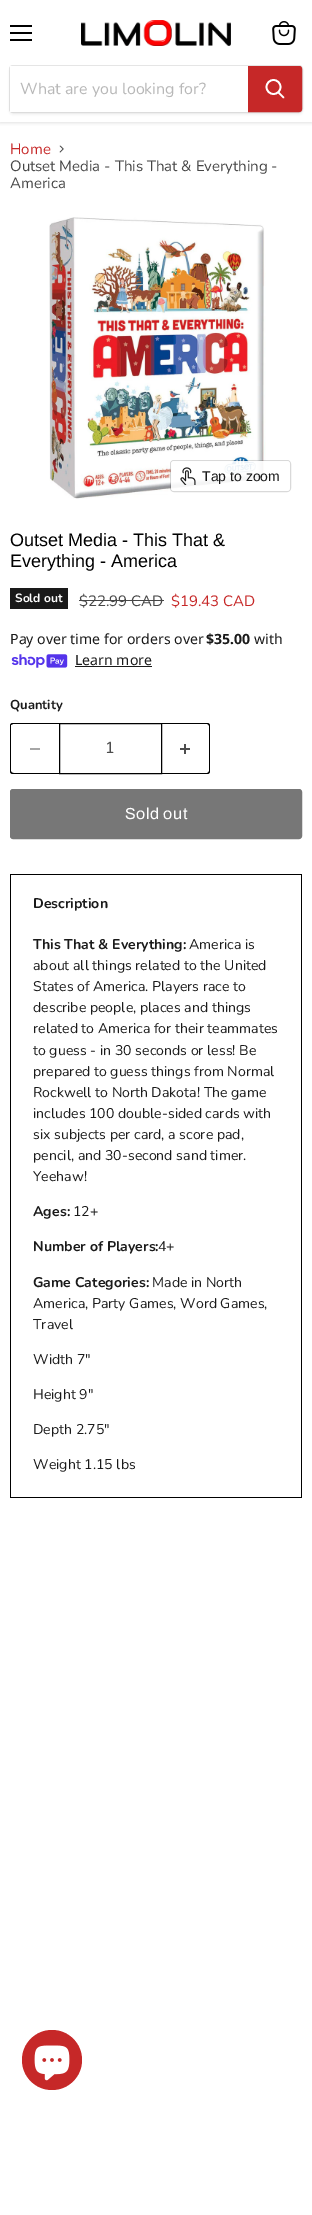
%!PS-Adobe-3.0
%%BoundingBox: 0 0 312 2215
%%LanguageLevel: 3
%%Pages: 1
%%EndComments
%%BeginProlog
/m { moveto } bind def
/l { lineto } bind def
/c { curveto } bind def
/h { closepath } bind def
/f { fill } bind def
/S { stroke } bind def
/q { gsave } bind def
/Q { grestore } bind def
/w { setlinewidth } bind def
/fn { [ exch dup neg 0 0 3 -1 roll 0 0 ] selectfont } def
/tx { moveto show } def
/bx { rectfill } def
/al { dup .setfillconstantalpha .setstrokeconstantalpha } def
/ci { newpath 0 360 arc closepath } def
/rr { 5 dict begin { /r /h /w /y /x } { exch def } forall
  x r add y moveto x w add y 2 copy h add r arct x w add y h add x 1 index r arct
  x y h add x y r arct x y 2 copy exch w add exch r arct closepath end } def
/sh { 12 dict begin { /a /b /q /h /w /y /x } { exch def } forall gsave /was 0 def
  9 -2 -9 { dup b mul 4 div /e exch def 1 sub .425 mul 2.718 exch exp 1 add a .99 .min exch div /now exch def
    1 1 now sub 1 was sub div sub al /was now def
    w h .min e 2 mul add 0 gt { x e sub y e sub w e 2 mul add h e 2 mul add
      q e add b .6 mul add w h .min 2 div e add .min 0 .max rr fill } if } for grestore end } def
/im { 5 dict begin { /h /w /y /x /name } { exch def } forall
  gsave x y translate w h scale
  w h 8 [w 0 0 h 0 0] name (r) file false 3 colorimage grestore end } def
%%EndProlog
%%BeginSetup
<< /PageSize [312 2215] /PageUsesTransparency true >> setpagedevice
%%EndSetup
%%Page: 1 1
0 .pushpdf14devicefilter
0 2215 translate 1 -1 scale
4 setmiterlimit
1 setgray
0 0 312 2215 bx
q
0 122 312 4 rectclip
0.502 setgray
0 1 312 122 0 2 0.25 sh
Q
0 setgray
10 25 22 2 bx
10 32 22 2 bx
10 39 22 2 bx
(image0.raw) 272 21 24 24 im
(image1.raw) 81 20 150 26 im
0.502 setgray
9 67 294 48 4 1.5 0.11 sh
0.2 al
9.5 65.5 293 47 3.5 rr S
1 al
1 setgray
10 66 238 46 bx
/Nunito-Regular 16 fn
0.722 setgray
(What are you looking for?) 20 94 tx
0.776 0.157 0.157 setrgbcolor
248.5 66.5 m 299 66.5 l 300.5 66.5 301.5 67.5 301.5 69 c 301.5 109 l 301.5 110.5 300.5 111.5 299 111.5 c 248.5 111.5 l h q f Q
S
1 setgray
1.7 w
1 setlinecap
283.5 97.5 m 278.5 92.5 l S
0 setlinecap
273.5 87 7 ci S
/Nunito-Regular 15 fn
0.776 0.157 0.157 setrgbcolor
(Home) 10 154 tx
(image2.raw) 59 145 5 8 im
0.275 setgray
(Outset Media - This That & Everything -) 10 171 tx
(America) 10 188 tx
(image3.raw) 49 217 217 282 im
0.15 al
0 setgray
1 w
170.5 460.5 120 31 3.5 rr S
0.9 al
1 setgray
171 461 119 30 3 rr f
1 al
(image4.raw) 180 467 16 18 im
/LiberationSans-Regular 14 fn
0.102 setgray
(Tap to zoom) 202 481 tx
/Arimo-Regular 18 fn
0 setgray
(Outset Media - This That &) 10 546 tx
(Everything - America) 10 567 tx
0.102 setgray
10 588 58 21 bx
/Nunito-Bold 12 fn
1 setgray
(Sold out) 15 602 tx
/Nunito-Regular 15 fn
0.275 setgray
($22.99 CAD) 79 606 tx
79 600 85 1 bx
0.776 0.157 0.157 setrgbcolor
($19.43 CAD) 171 606 tx
/NotoSans-Regular 14.1 fn
0.102 setgray
(Pay over time for orders over) 10 644 tx
/NotoSans-Bold 14.1 fn
($35.00) 206 644 tx
/NotoSans-Regular 14.1 fn
(with) 254 644 tx
(image5.raw) 11 654 57 14 im
(Learn more) 75 665 tx
75 666 77 1 bx
/Nunito-Bold 13 fn
(Quantity) 10 709 tx
0 setgray
13 723 m 59 723 l 59 774 l 13 774 l 11 774 10 773 10 771 c 10 726 l 10 724 11 723 13 723 c h 13 724 m 59 724 l 59 773 l 21 773 l 17 773 11 774 11 771 c 11 725 l h eofill
0.651 setgray
30 748 10 2 bx
0 setgray
59.5 723.5 102 50 rectstroke
/Nunito-Regular 16 fn
0.302 setgray
(1) 105 753 tx
0 setgray
162 723 m 207 723 l 209 723 210 724 210 726 c 210 771 l 210 773 209 774 207 774 c 162 774 l h 162 724 m 207 724 l 208 724 209 725 209 726 c 209 771 l 209 772 208 773 207 773 c 162 773 l h eofill
(image6.raw) 180 744 10 10 im
0.467 setgray
10.5 789.5 291 49 2.5 rr q f Q
S
/Archivo-Regular 16 fn
1 setgray
125 819 m 0.5 0 (Sold out) ashow
0 setgray
10 874 292 1 bx
301 874 1 624 bx
10 874 1 60 bx
/Nunito-Bold 14.1 fn
0.102 setgray
(Description) 33 908 tx
0 setgray
10 1497 292 1 bx
10 934 1 564 bx
0.102 setgray
(This That & Everything:) 33 949 tx
/Nunito-Regular 14.1 fn
(America is) 189 949 tx
(about all things related to the United) 33 970 tx
(States of America. Players race to) 33 991 tx
(describe people, places and things) 33 1012 tx
(related to America for their teammates) 33 1033 tx
(to guess - in 30 seconds or less! Be) 33 1055 tx
(prepared to guess things from Normal) 33 1076 tx
(Rockwell to North Dakota! The game) 33 1097 tx
(includes 100 double-sided cards with) 33 1118 tx
(six subjects per card, a score pad,) 33 1139 tx
(pencil, and 30-second sand timer.) 33 1160 tx
(Yeehaw!) 33 1181 tx
/Nunito-Bold 14.1 fn
(Ages:) 33 1216 tx
/Nunito-Regular 14.1 fn
(12+) 73 1216 tx
/Nunito-Bold 14.1 fn
(Number of Players:) 33 1251 tx
/Nunito-Regular 14.1 fn
(4+) 158 1251 tx
/Nunito-Bold 14.1 fn
(Game Categories:) 33 1287 tx
/Nunito-Regular 14.1 fn
(Made in North) 152 1287 tx
(America, Party Games, Word Games,) 33 1308 tx
(Travel) 33 1329 tx
(Width 7") 33 1364 tx
(Height 9") 33 1399 tx
(Depth 2.75") 33 1434 tx
(Weight 1.15 lbs) 33 1469 tx
0.776 0.157 0.157 setrgbcolor
52 2060 30 ci f
(image7.raw) 34 2045 36 36 im
.poppdf14devicefilter showpage
%%EOF
